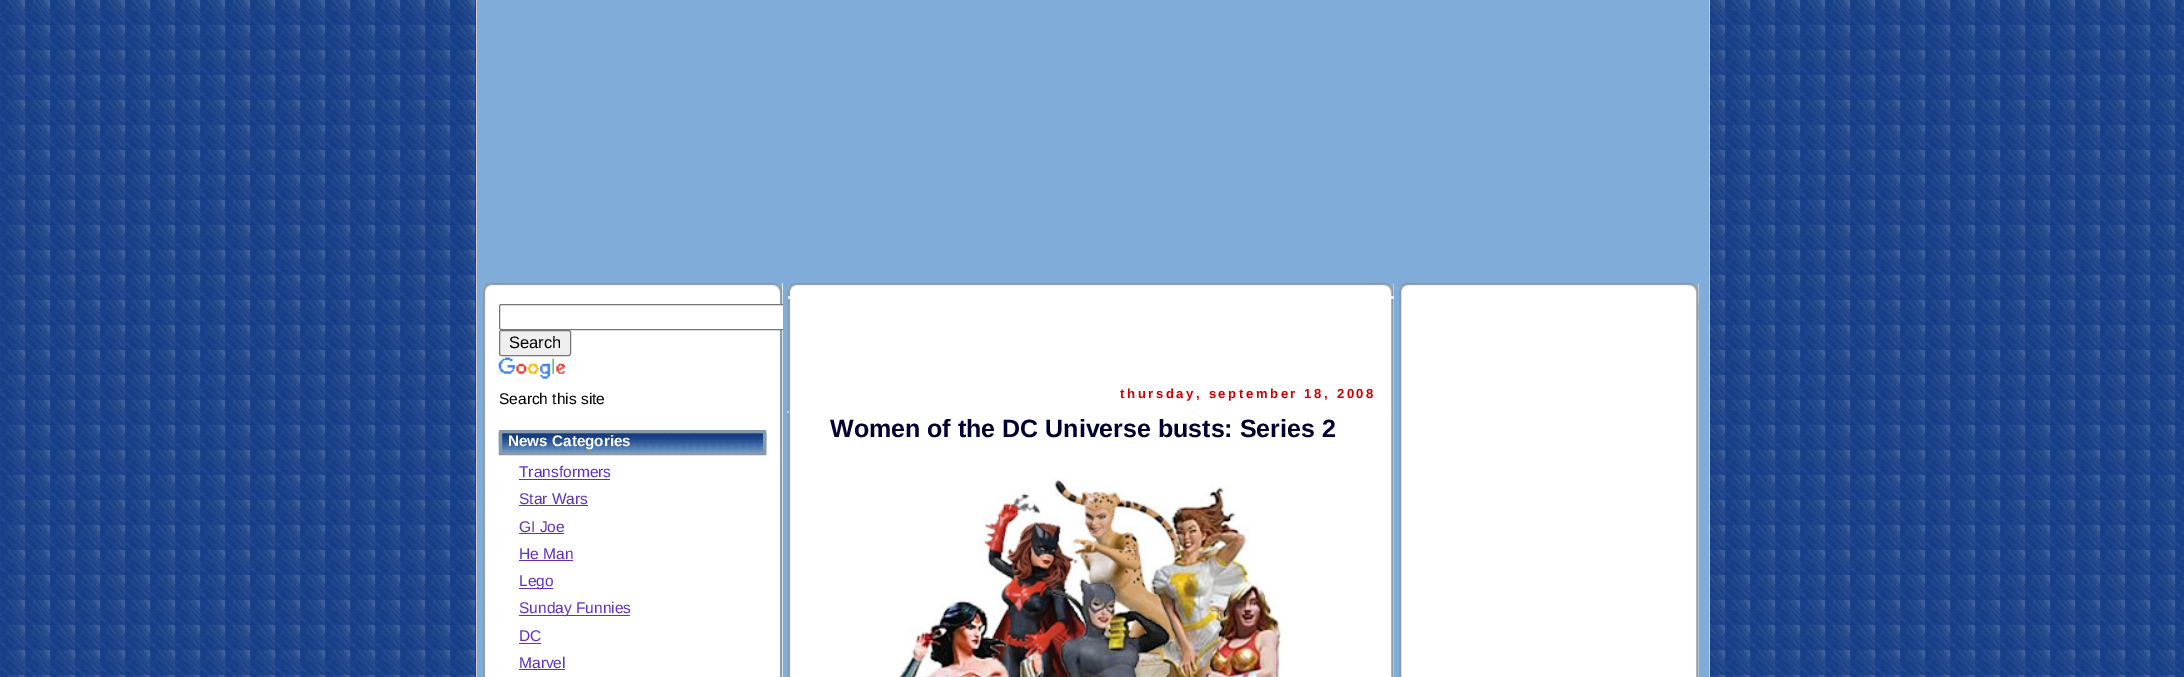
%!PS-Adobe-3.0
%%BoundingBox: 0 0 2184 677
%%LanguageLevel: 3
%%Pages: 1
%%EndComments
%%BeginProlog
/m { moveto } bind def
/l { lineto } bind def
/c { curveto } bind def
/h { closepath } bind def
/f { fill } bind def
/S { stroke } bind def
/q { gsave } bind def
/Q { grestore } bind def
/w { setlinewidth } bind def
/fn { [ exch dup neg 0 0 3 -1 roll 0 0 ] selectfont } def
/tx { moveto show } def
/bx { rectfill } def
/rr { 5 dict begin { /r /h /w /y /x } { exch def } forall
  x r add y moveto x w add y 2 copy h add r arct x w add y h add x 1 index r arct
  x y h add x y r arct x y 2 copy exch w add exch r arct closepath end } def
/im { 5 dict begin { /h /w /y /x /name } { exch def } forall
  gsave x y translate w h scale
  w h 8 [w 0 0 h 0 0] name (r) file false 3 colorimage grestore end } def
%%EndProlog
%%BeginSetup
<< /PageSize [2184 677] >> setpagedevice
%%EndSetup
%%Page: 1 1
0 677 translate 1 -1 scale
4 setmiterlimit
1 setgray
0 0 2184 677 bx
(image0.raw) 0 0 2184 677 im
0.502 0.675 0.851 setrgbcolor
477 0 1232 677 bx
0.8 setgray
1709 0 1 677 bx
476 0 1 677 bx
1 setgray
782 283 1 394 bx
(image1.raw) 482 282 301 38 im
(image2.raw) 482 303 301 374 im
501.5 304 m 783 304 l 783 330 l 501.5 330 l 500 330 499 329 499 327.5 c 499 306.5 l 499 305 500 304 501.5 304 c h f
q
483 283 300 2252 rectclip
0.463 setgray
499.5 304.5 340 25 2 rr S
Q
0.937 setgray
499.5 330.5 71 25 2 rr q f Q
0.463 setgray
S
/LiberationSans-Regular 16.5 fn
0 setgray
(Search) 509 348 tx
(image3.raw) 498 357 68 22 im
/LiberationSans-Regular 15.5 fn
(Search this site) 499 404 tx
(image4.raw) 498 432 269 23 im
0.533 0.6 0.667 setrgbcolor
3 w
500.5 431.5 264 22 rectstroke
/LiberationSans-Bold 15.25 fn
1 setgray
(News Categories) 508 446 tx
/LiberationSans-Regular 15.5 fn
0.38 0.192 0.741 setrgbcolor
(Transformers) 519 477 tx
519 479 91 1 bx
(Star Wars) 519 504 tx
519 505 69 1 bx
(GI Joe) 519 532 tx
519 533 45 1 bx
(He Man) 519 559 tx
519 560 54 1 bx
519 588 34 1 bx
(Lego) 519 586 tx
519 615 111 1 bx
(Sunday Funnies) 519 613 tx
(DC) 519 641 tx
519 643 22 1 bx
(Marvel) 519 668 tx
519 669 46 1 bx
1 setgray
788 283 606 394 bx
(image5.raw) 787 282 607 15 im
(image6.raw) 787 298 607 379 im
/LiberationSans-Bold 13.1 fn
0.8 0 0 setrgbcolor
1120 398 m 2.6 0 (thursday, september 18, 2008) ashow
1 setgray
1.2 w
[1.25 1.25] 0 setdash
787.5 412 m 1392.5 412 l S
/LiberationSans-Bold 25 fn
0 0 0.2 setrgbcolor
(Women of the DC Universe busts: Series 2) 830 437 tx
(image7.raw) 895 478 390 199 im
1 setgray
1698 283 1 394 bx
(image8.raw) 1399 282 300 38 im
(image9.raw) 1399 303 300 374 im
showpage
%%EOF
